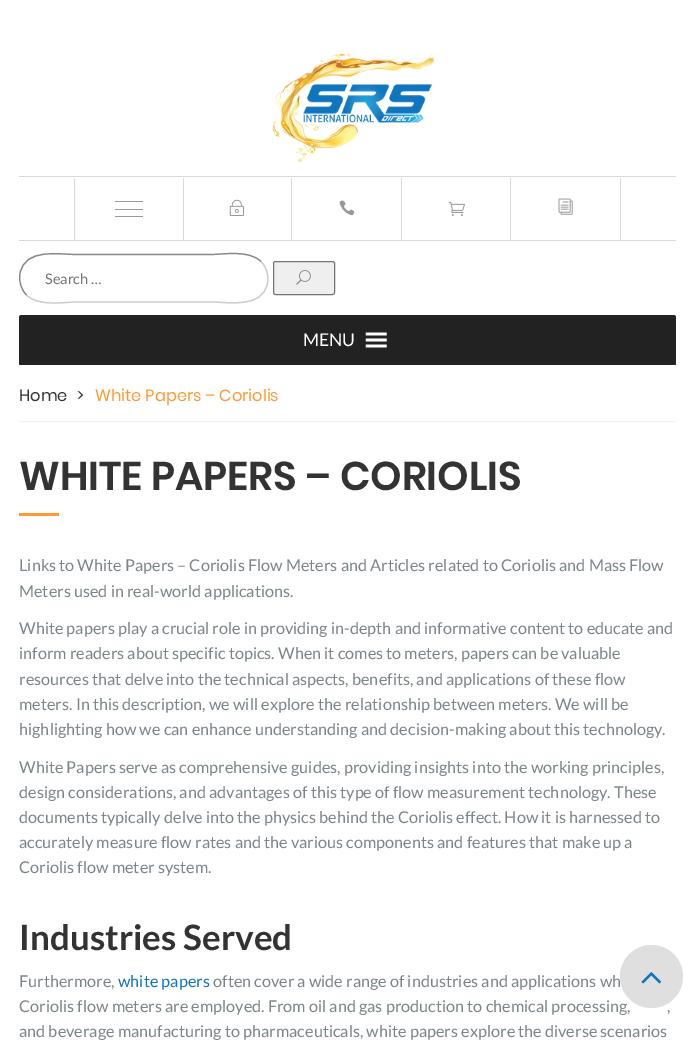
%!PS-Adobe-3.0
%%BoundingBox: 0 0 694 1044
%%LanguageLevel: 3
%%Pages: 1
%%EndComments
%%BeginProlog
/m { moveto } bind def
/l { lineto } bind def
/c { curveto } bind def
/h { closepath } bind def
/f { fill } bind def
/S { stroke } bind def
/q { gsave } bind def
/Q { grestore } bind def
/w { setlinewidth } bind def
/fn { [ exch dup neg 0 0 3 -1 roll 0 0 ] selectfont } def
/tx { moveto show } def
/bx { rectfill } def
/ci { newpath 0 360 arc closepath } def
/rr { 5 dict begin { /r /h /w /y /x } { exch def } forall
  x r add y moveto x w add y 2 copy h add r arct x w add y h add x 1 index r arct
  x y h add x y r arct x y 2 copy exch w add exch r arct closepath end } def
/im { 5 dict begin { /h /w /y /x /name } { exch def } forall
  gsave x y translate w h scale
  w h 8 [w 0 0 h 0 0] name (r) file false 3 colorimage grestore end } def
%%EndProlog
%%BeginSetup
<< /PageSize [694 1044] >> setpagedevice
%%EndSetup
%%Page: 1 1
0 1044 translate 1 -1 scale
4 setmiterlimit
1 setgray
0 0 694 1044 bx
(image0.raw) 272 53 162 109 im
0.851 setgray
19 176 657 1 bx
19 240 657 1 bx
183 178 1 62 bx
74 178 1 62 bx
0.6 setgray
115 201 28 1 bx
115 209 28 1 bx
115 216 28 1 bx
0.851 setgray
291 178 1 62 bx
(image1.raw) 229 199 15 17 im
401 178 1 62 bx
(image2.raw) 339 200 16 16 im
510 178 1 62 bx
(image3.raw) 448 201 17 15 im
620 178 1 62 bx
(image4.raw) 558 198 15 17 im
0.8 setgray
1.2 w
261 261.5 m 266.5 267 269 275 267.5 283 c 262.5 309 229 302 211 302 c 76.5 302 l 64.5 302 38.5 307 26.5 295 c S
0.533 setgray
26.5 295 m 21 289.5 18.5 281 20 273.5 c 25 247.5 58.5 254.5 76.5 254.5 c 211 254.5 l 223 254.5 249 249.5 261 261.5 c S
/Lato-Regular 14.5 fn
0.459 setgray
(Search …) 45 284 tx
0.937 setgray
273.5 261.5 61 33 2 rr q f Q
0.463 setgray
1 w
S
(image5.raw) 296 270 15 15 im
0.329 0.306 0.306 setrgbcolor
24 315 m 671 315 l 674 315 676 317 676 320 c 676 365 l 19 365 l 19 320 l 19 317 21 315 24 315 c h f
0.133 setgray
19 315 657 50 2.5 rr f
/Lato-Regular 17.5 fn
1 setgray
(MENU) 303 346 tx
(image6.raw) 365 332 22 16 im
0.945 setgray
19 421 657 1 bx
/Poppins-Regular 16.25 fn
0.2 setgray
(Home) 19 401 tx
(>) 77 401 tx
1 0.6 0.2 setrgbcolor
(White Papers – Coriolis) 95 401 tx
/Poppins-SemiBold 40 fn
0.2 setgray
(WHITE PAPERS – CORIOLIS) 19 490 tx
1 0.6 0.2 setrgbcolor
19 513 40 3 bx
/Lato-Regular 16.25 fn
0.482 0.522 0.541 setrgbcolor
(Links to White Papers – Coriolis Flow Meters and Articles related to Coriolis and Mass Flow) 19 571 tx
(Meters used in real-world applications.) 19 597 tx
(White papers play a crucial role in providing in-depth and informative content to educate and) 19 634 tx
(inform readers about specific topics. When it comes to meters, papers can be valuable) 19 659 tx
(resources that delve into the technical aspects, benefits, and applications of these flow) 19 685 tx
(meters. In this description, we will explore the relationship between meters. We will be) 19 710 tx
(highlighting how we can enhance understanding and decision-making about this technology.) 19 735 tx
(White Papers serve as comprehensive guides, providing insights into the working principles,) 19 773 tx
(design considerations, and advantages of this type of flow measurement technology. These) 19 798 tx
(documents typically delve into the physics behind the Coriolis effect. How it is harnessed to) 19 823 tx
(accurately measure flow rates and the various components and features that make up a) 19 848 tx
(Coriolis flow meter system.) 19 873 tx
/Lato-Bold 35 fn
0.2 setgray
(Industries Served) 19 950 tx
/Lato-Regular 16.25 fn
0.482 0.522 0.541 setrgbcolor
(Furthermore,) 19 987 tx
0.059 0.459 0.737 setrgbcolor
(white papers) 118 987 tx
0.482 0.522 0.541 setrgbcolor
(often cover a wide range of industries and applications wh) 213 987 tx
(Coriolis flow meters are employed. From oil and gas production to chemical processing,) 19 1012 tx
(,) 667 1012 tx
(and beverage manufacturing to pharmaceuticals, white papers explore the diverse scenarios) 19 1037 tx
0.875 setgray
651.5 976.5 31.5 ci f
(image7.raw) 641 972 21 12 im
showpage
%%EOF
